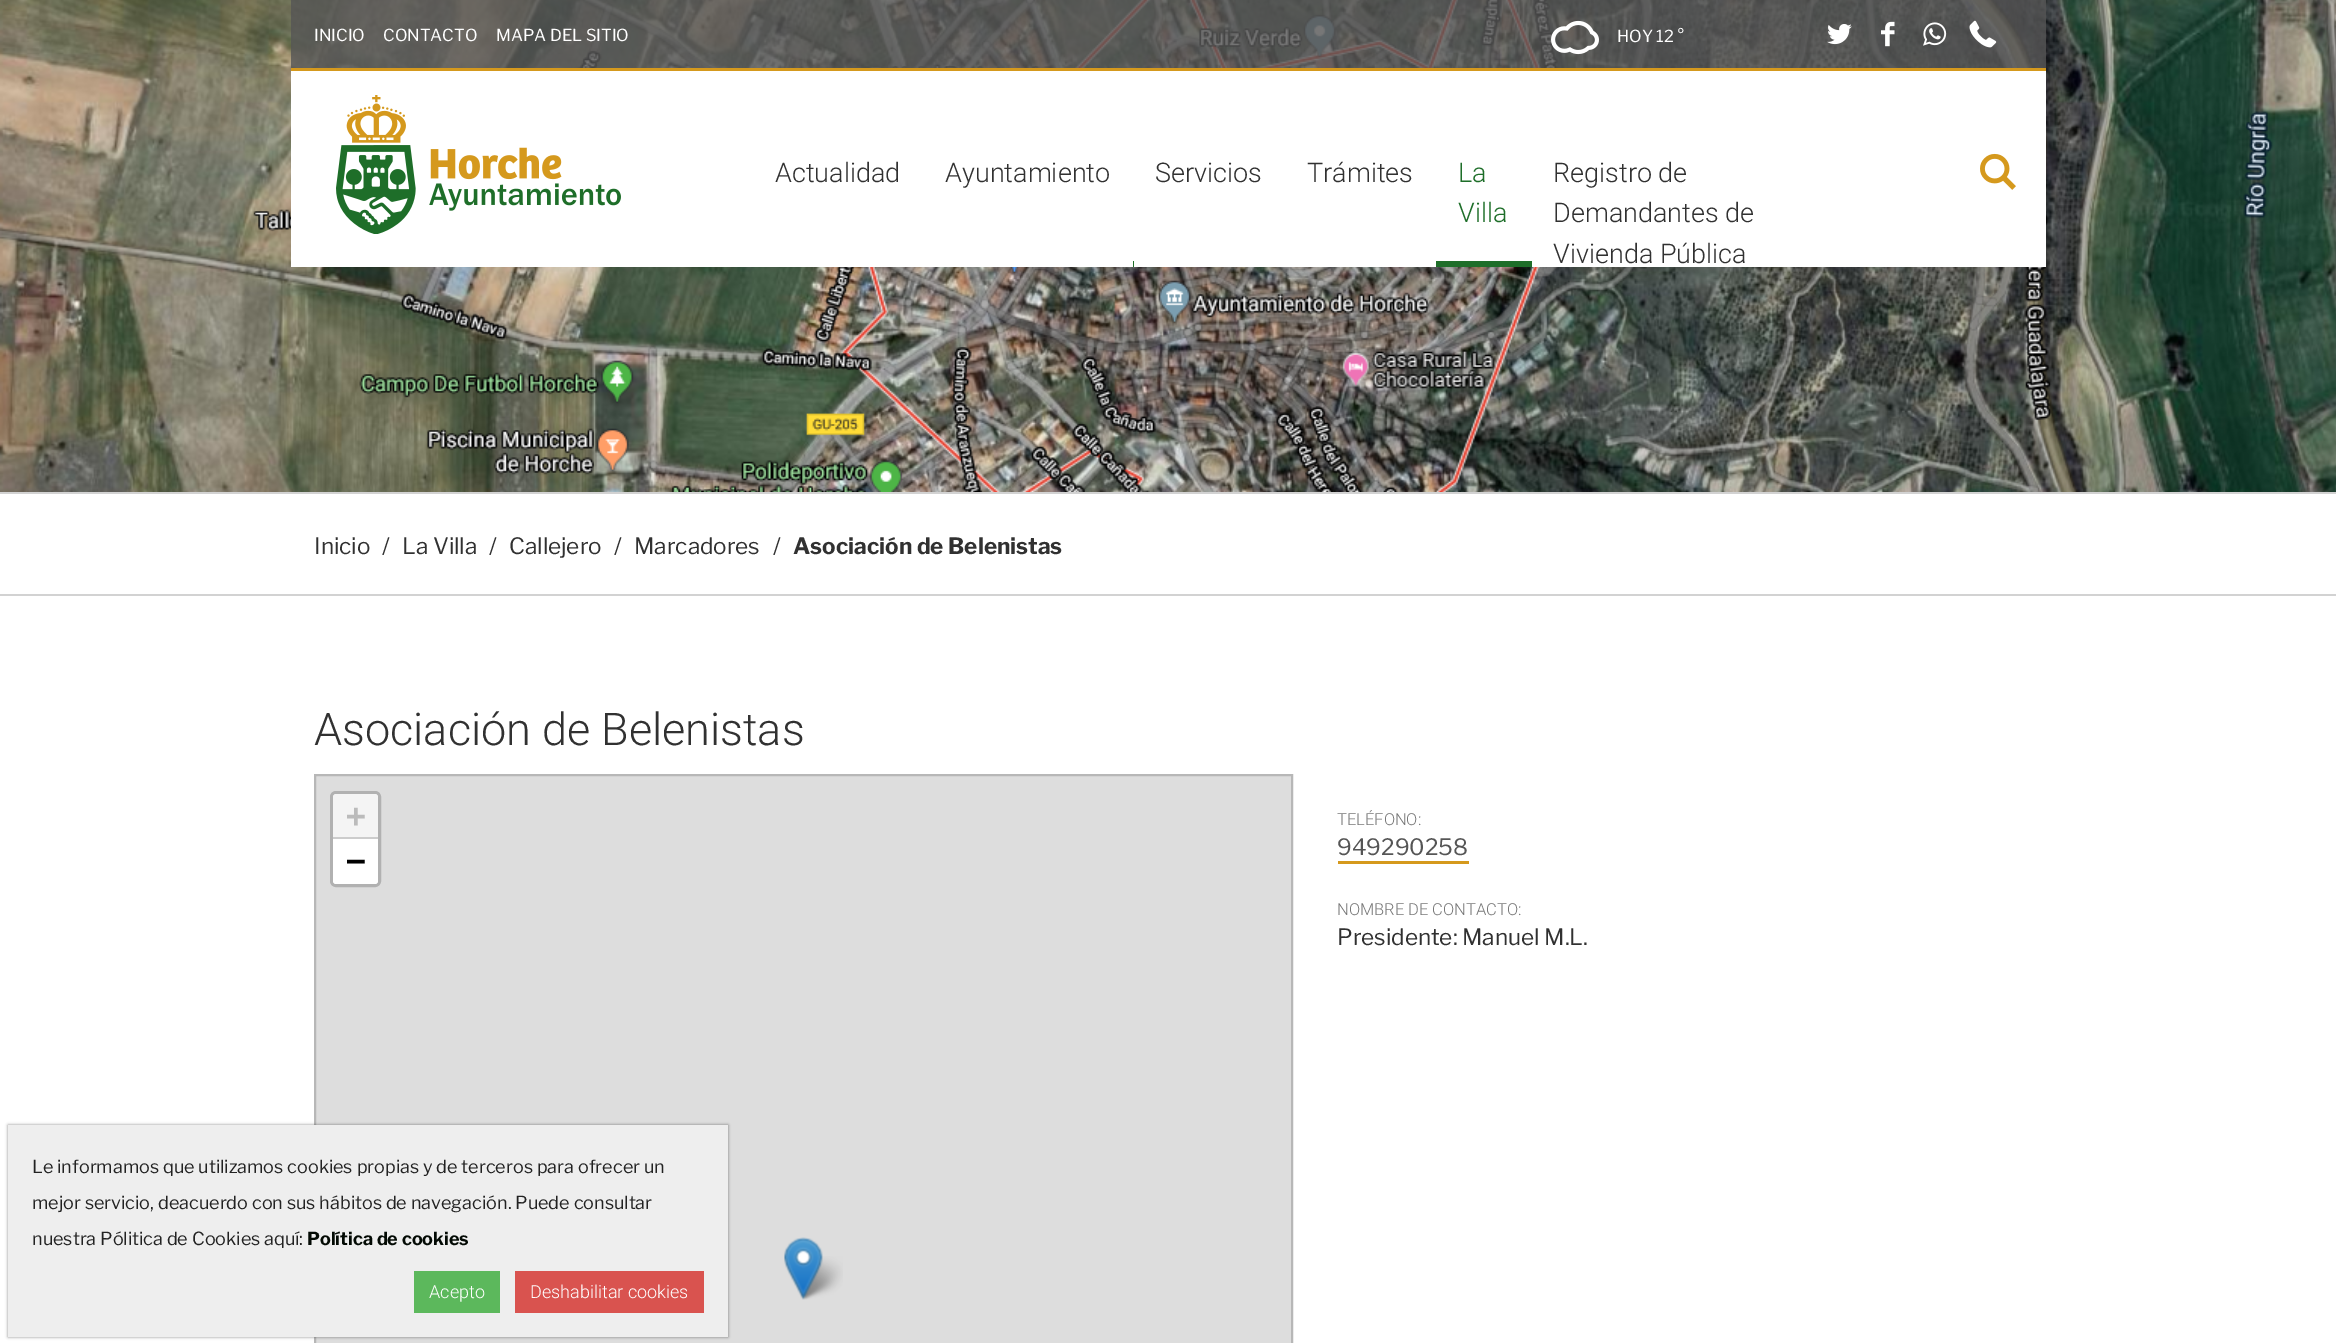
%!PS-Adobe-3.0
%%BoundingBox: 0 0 2336 1343
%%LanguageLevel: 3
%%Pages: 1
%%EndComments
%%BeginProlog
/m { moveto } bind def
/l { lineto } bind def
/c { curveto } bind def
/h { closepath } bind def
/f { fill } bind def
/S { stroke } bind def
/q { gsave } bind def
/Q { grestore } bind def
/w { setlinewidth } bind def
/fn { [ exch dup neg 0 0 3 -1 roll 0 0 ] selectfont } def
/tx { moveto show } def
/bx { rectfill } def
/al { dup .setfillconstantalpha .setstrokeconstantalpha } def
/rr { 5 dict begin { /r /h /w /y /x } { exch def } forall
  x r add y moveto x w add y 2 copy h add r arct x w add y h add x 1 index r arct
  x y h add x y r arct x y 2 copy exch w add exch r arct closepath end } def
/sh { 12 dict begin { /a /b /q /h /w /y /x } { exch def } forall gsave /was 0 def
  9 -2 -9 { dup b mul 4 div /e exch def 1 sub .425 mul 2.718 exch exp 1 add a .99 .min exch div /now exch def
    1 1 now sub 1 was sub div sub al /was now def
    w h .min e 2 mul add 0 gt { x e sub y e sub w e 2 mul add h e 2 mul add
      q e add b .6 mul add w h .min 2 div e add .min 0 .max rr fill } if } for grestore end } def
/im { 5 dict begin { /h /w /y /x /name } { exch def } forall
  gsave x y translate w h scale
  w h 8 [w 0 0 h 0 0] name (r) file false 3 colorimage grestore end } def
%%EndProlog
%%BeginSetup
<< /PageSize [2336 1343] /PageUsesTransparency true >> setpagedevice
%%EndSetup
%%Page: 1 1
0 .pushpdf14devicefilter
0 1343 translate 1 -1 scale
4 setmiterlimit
1 setgray
0 0 2336 1343 bx
(image0.raw) 0 0 2336 492 im
0.8 al
0.333 setgray
291 0 1755 68 bx
1 al
0.835 0.6 0.114 setrgbcolor
291 68 1755 3 bx
/LibreFranklin-Regular 16.5 fn
1 setgray
(INICIO) 314 41 tx
(CONTACTO) 383 41 tx
(MAPA DEL SITIO) 496 41 tx
(image1.raw) 1551 20 48 35 im
(HOY 12 °) 1617 42 tx
(image2.raw) 1827 24 25 21 im
(image3.raw) 1881 21 14 26 im
(image4.raw) 1923 22 24 24 im
(image5.raw) 1969 20 28 28 im
291 71 1755 196 bx
(image6.raw) 336 95 285 139 im
/Roboto-Light 27 fn
0.192 setgray
(Actualidad) 775 182 tx
(Ayuntamiento) 945 182 tx
(Servicios) 1155 182 tx
0.118 0.431 0.161 setrgbcolor
1133 261 1 6 bx
0.192 setgray
(Trámites) 1307 182 tx
0.118 0.431 0.161 setrgbcolor
(La) 1458 182 tx
(Villa) 1458 222 tx
1436 261 96 6 bx
0.192 setgray
(Registro de) 1553 182 tx
(Demandantes de) 1553 222 tx
(Vivienda Pública) 1553 263 tx
(image7.raw) 1980 153 36 37 im
0.824 setgray
0 492 2336 2 bx
0 594 2336 2 bx
/LibreFranklin-Regular 22.5 fn
0.192 setgray
(Inicio) 314 554 tx
(/) 382 554 tx
(La Villa) 402 554 tx
(/) 489 554 tx
(Callejero) 509 554 tx
(/) 614 554 tx
(Marcadores) 634 554 tx
(/) 773 554 tx
/LibreFranklin-Bold 22.5 fn
(Asociación de Belenistas) 793 554 tx
/Roboto-Light 45 fn
(Asociación de Belenistas) 314 745 tx
0.867 setgray
315 775 m 1292 775 l 1292 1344 l 315 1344 l h q f Q
0.718 setgray
2 w
S
0.694 setgray
3 w
331.5 792.5 48 93 4.5 rr S
0.957 setgray
336 794 m 375 794 l 376.5 794 378 795.5 378 797 c 378 839 l 333 839 l 333 797 l 333 795.5 334.5 794 336 794 c h f
0.8 setgray
333 837 45 2 bx
/DejaVuSansMono-Bold 33 fn
0.733 setgray
(+) 346 827 tx
1 setgray
333 839 m 378 839 l 378 881 l 378 882.5 376.5 884 375 884 c 336 884 l 334.5 884 333 882.5 333 881 c h f
0 setgray
(−) 346 872 tx
(image9.raw) 798 1256 45 44 im
(image8.raw) 784 1237 39 63 im
/Roboto-Light 16.5 fn
0.467 setgray
(TELÉFONO:) 1337 825 tx
/LibreFranklin-Regular 22.5 fn
0.333 setgray
(949290258) 1337 855 tx
0.835 0.6 0.114 setrgbcolor
1338 861 131 3 bx
/Roboto-Light 16.5 fn
0.467 setgray
(NOMBRE DE CONTACTO:) 1337 915 tx
/LibreFranklin-Regular 22.5 fn
0.192 setgray
(Presidente: Manuel M.L.) 1337 945 tx
0.133 setgray
8 1125 720 212 0 1.5 0.5 sh
0.933 setgray
8 1125 720 212 bx
/LibreFranklin-Regular 18 fn
0.133 setgray
(Le informamos que utilizamos cookies propias y de terceros para ofrecer un) 32 1173 tx
(mejor servicio, deacuerdo con sus hábitos de navegación. Puede consultar) 32 1209 tx
(nuestra Pólitica de Cookies aquí:) 32 1245 tx
/LibreFranklin-Bold 18 fn
0.012 0.039 0.016 setrgbcolor
(Política de cookies) 307 1245 tx
0.361 0.722 0.361 setrgbcolor
414 1271 86 42 bx
/Roboto-Light 18 fn
1 setgray
(Acepto) 429 1298 tx
0.851 0.325 0.31 setrgbcolor
515 1271 189 42 bx
1 setgray
(Deshabilitar cookies) 530 1298 tx
.poppdf14devicefilter showpage
%%EOF
